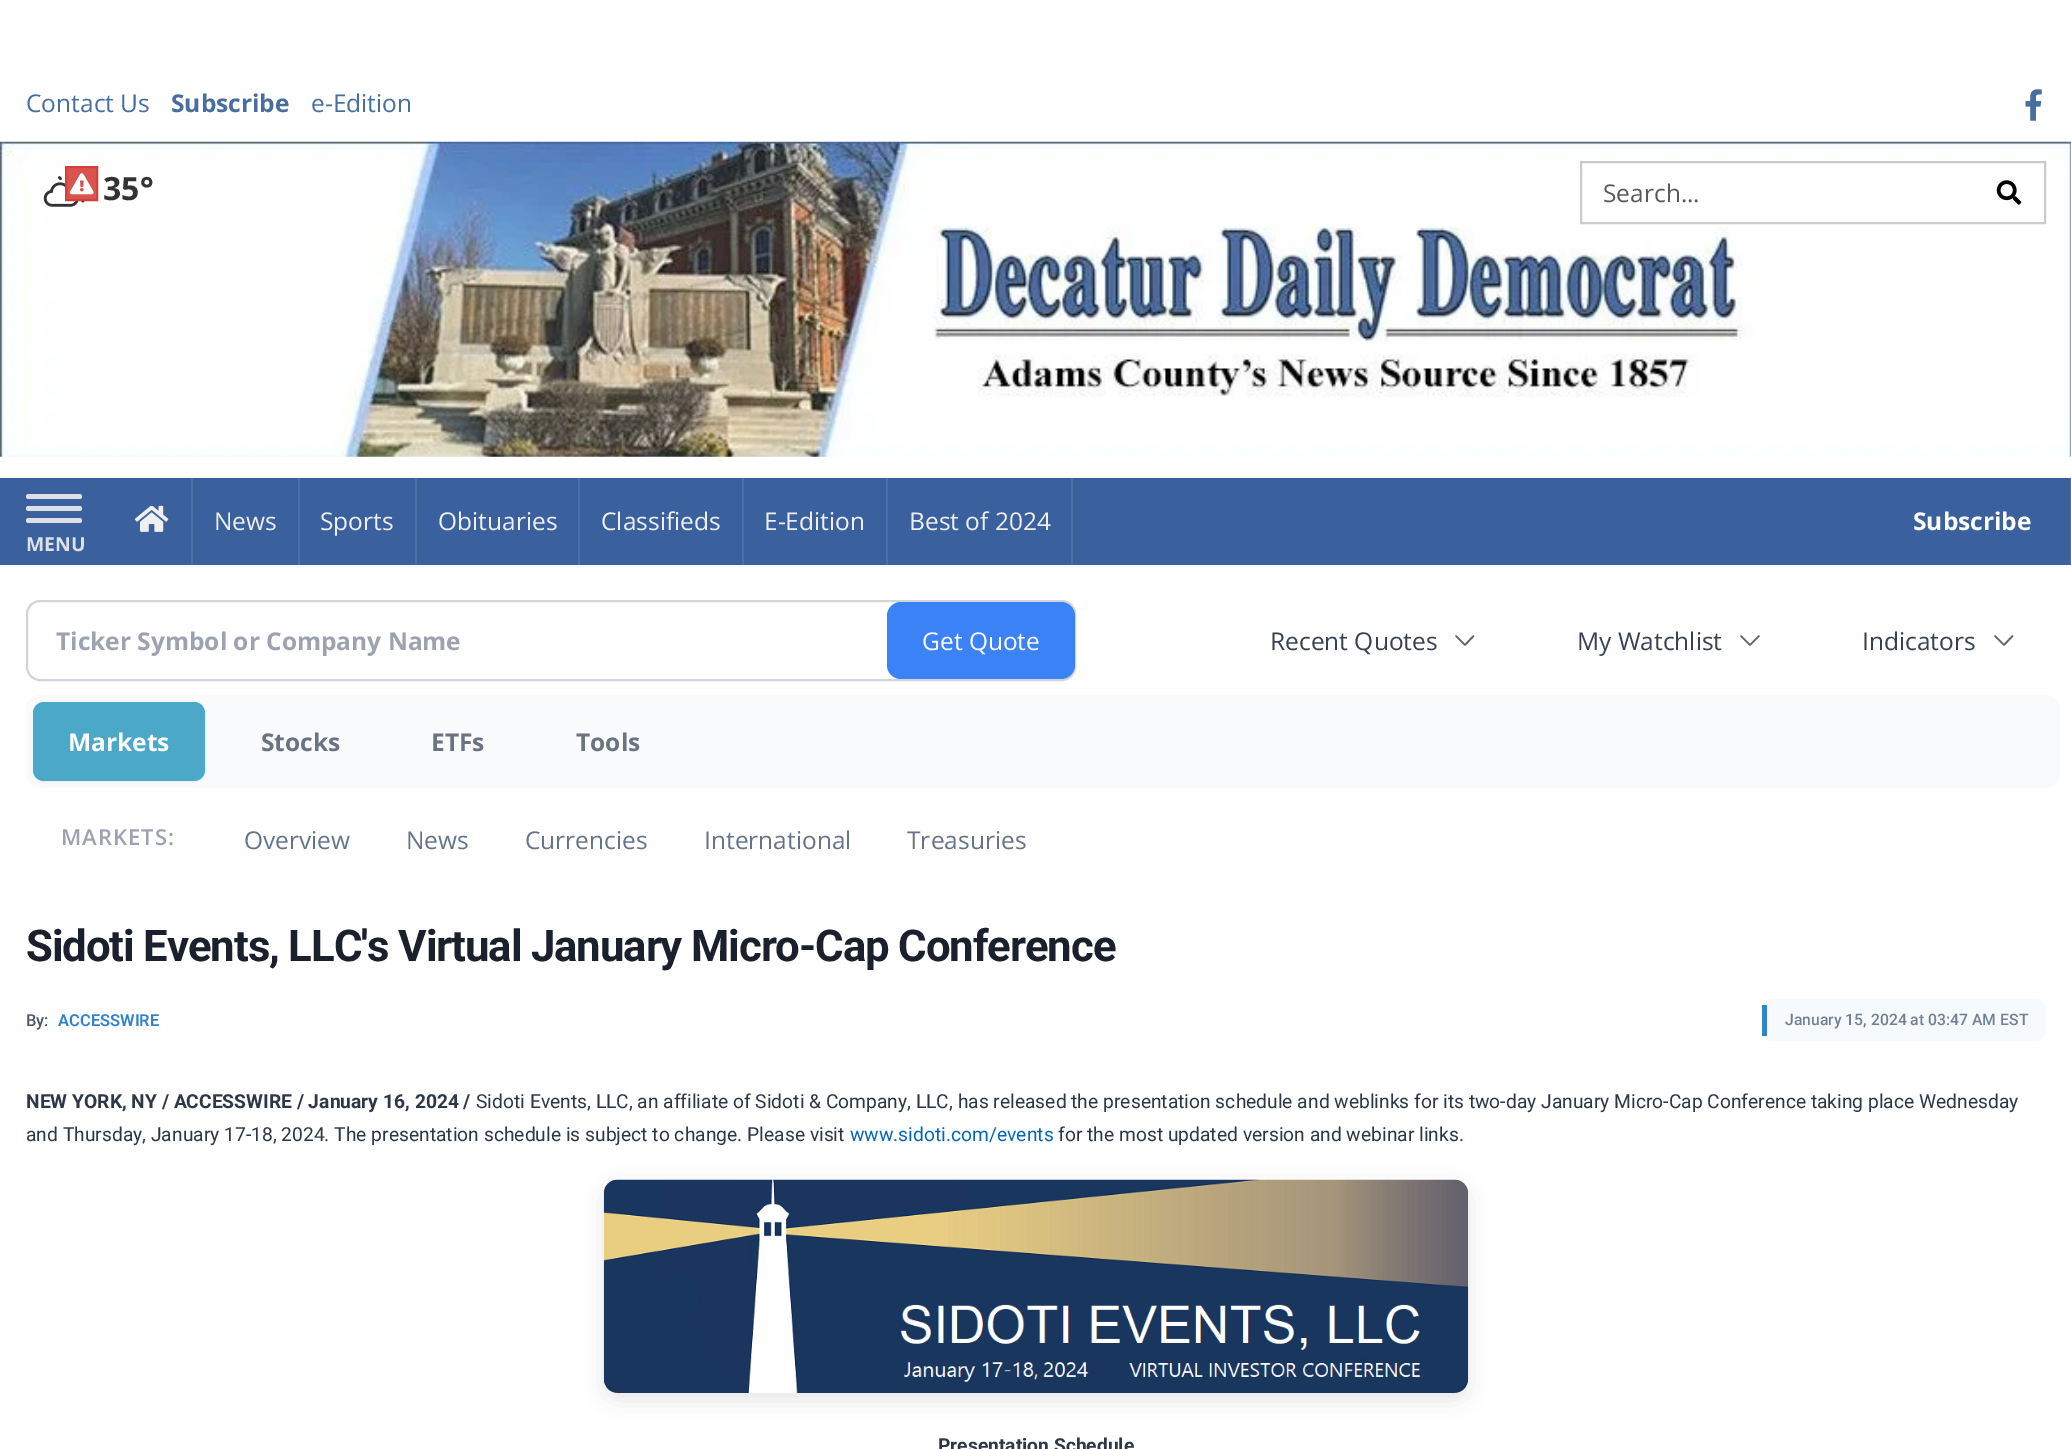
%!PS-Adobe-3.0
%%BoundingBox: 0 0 2071 1449
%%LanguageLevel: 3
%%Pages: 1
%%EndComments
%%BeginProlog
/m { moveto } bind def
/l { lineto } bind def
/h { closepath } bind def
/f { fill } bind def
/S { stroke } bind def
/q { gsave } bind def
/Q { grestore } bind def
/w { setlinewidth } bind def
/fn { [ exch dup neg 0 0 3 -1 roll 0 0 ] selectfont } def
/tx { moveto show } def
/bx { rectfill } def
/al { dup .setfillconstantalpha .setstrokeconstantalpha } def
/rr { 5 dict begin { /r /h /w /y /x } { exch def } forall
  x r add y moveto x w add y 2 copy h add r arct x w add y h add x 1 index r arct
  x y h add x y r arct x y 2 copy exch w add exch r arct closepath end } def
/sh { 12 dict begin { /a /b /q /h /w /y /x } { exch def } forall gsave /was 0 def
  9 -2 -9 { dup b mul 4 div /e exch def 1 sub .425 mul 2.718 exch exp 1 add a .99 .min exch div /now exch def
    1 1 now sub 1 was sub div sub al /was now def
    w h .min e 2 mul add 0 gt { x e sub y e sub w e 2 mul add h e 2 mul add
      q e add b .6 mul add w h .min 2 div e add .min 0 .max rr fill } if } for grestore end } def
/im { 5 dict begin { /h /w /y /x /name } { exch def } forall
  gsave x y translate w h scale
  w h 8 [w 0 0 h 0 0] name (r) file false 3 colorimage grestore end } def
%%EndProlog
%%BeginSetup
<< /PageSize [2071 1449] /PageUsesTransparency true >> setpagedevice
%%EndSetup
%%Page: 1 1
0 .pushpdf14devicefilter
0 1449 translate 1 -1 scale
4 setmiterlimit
1 setgray
0 0 2071 1449 bx
/OpenSans-Regular 24.5 fn
0.282 0.431 0.624 setrgbcolor
(Contact Us) 26 112 tx
/OpenSans-Bold 24.5 fn
(Subscribe) 171 112 tx
/OpenSans-Regular 24.5 fn
(e-Edition) 311 112 tx
(image0.raw) 2025 89 17 32 im
(image1.raw) 0 141 2071 316 im
(image3.raw) 43 176 42 31 im
0.851 0.325 0.31 setrgbcolor
66 167 m 97 167 l 97 200 l 66 200 l h q f Q
0.831 0.247 0.227 setrgbcolor
2 w
S
(image2.raw) 70 173 24 22 im
/OpenSans-Bold 32 fn
0.2 setgray
(35°) 103 200 tx
1 setgray
1582 163 462 7 bx
0.8 setgray
1581 162 464 61 rectstroke
/OpenSans-Regular 24.5 fn
0.349 setgray
(Search...) 1603 202 tx
(image4.raw) 1996 180 26 25 im
0.227 0.376 0.62 setrgbcolor
0 478 2070 87 bx
0.306 0.439 0.659 setrgbcolor
191 478 2 87 bx
(image5.raw) 134 505 35 27 im
298 478 2 87 bx
0.937 setgray
(News) 214 530 tx
0.306 0.439 0.659 setrgbcolor
415 478 2 87 bx
0.937 setgray
(Sports) 320 530 tx
0.306 0.439 0.659 setrgbcolor
578 478 2 87 bx
0.937 setgray
(Obituaries) 438 530 tx
0.306 0.439 0.659 setrgbcolor
742 478 2 87 bx
0.937 setgray
(Classifieds) 601 530 tx
0.306 0.439 0.659 setrgbcolor
886 478 2 87 bx
0.937 setgray
(E-Edition) 764 530 tx
0.306 0.439 0.659 setrgbcolor
1071 478 2 87 bx
0.937 setgray
(Best of 2024) 909 530 tx
0.306 0.439 0.659 setrgbcolor
2070 478 1 87 bx
/OpenSans-Bold 24.5 fn
1 setgray
(Subscribe) 1913 530 tx
0.867 0.882 0.906 setrgbcolor
26 494 56 5 2.5 rr f
26 506 56 5 2.5 rr f
26 518 56 5 2.5 rr f
/OpenSans-Bold 19.25 fn
(MENU) 26 551 tx
0.82 0.835 0.859 setrgbcolor
27 601 1048 79 13 rr S
/OpenSans-Bold 24.5 fn
0.612 0.639 0.686 setrgbcolor
(Ticker Symbol or Company Name) 56 650 tx
0.231 0.51 0.965 setrgbcolor
887 602 188 77 14 rr f
/OpenSans-Regular 24.5 fn
1 setgray
(Get Quote) 922 650 tx
0.216 0.255 0.318 setrgbcolor
(Recent Quotes) 1270 650 tx
0.4 setgray
1.7 w
1 setlinecap
1 setlinejoin
1473.5 636 m 1465 645 l 1456 636 l S
0.216 0.255 0.318 setrgbcolor
(My Watchlist) 1577 650 tx
0.4 setgray
1759 636 m 1750 645 l 1741 636 l S
0.216 0.255 0.318 setrgbcolor
(Indicators) 1862 650 tx
0.4 setgray
2012.5 636 m 2004 645 l 1995 636 l S
0.973 0.98 0.988 setrgbcolor
26 695 2034 93 14 rr f
0 setgray
33 704 172 78 11 2 0.05 sh
0.298 0.659 0.784 setrgbcolor
33 702 172 79 11 rr f
/OpenSans-Bold 24.5 fn
1 setgray
(Markets) 68 751 tx
0.42 0.447 0.502 setrgbcolor
(Stocks) 261 751 tx
(ETFs) 431 751 tx
(Tools) 576 751 tx
/OpenSans-SemiBold 22 fn
0.612 0.639 0.686 setrgbcolor
61 845 m 1 0 (MARKETS:) ashow
/OpenSans-Regular 24.5 fn
0.392 0.455 0.545 setrgbcolor
(Overview) 244 849 tx
(News) 406 849 tx
(Currencies) 525 849 tx
(International) 704 849 tx
(Treasuries) 907 849 tx
/Roboto-Bold 43.75 fn
0.102 0.125 0.173 setrgbcolor
26 961 m -1.1 0 (Sidoti Events, LLC's Virtual January Micro-Cap Conference) ashow
/Roboto-Medium 16.5 fn
0.29 0.333 0.408 setrgbcolor
(By:) 26 1026 tx
/Roboto-SemiBold 16.5 fn
0.192 0.51 0.808 setrgbcolor
(ACCESSWIRE) 58 1026 tx
0.969 0.98 0.988 setrgbcolor
1762 999 284 42 11 rr f
0.192 0.51 0.808 setrgbcolor
1762 1005 5 31 bx
/Roboto-Medium 15.75 fn
0.443 0.502 0.588 setrgbcolor
(January 15, 2024 at 03:47 AM EST) 1785 1025 tx
/Roboto-Bold 19.25 fn
0.176 0.216 0.282 setrgbcolor
(NEW YORK, NY / ACCESSWIRE / January 16, 2024 /) 26 1108 tx
/Roboto-Regular 19.25 fn
(Sidoti Events, LLC, an affiliate of Sidoti & Company, LLC, has released the presentation schedule and weblinks for its two-day January Micro-Cap Conference taking place Wednesday) 476 1108 tx
(and Thursday, January 17-18, 2024. The presentation schedule is subject to change. Please visit) 26 1141 tx
0.016 0.4 0.714 setrgbcolor
(www.sidoti.com/events) 850 1141 tx
0.176 0.216 0.282 setrgbcolor
(for the most updated version and webinar links.) 1058 1141 tx
0 setgray
604 1187 864 213 14 10.5 0.1 sh
(image6.raw) 603 1179 866 214 im
/Roboto-Bold 19.25 fn
0.176 0.216 0.282 setrgbcolor
(Presentation Schedule) 938 1452 tx
.poppdf14devicefilter showpage
%%EOF
